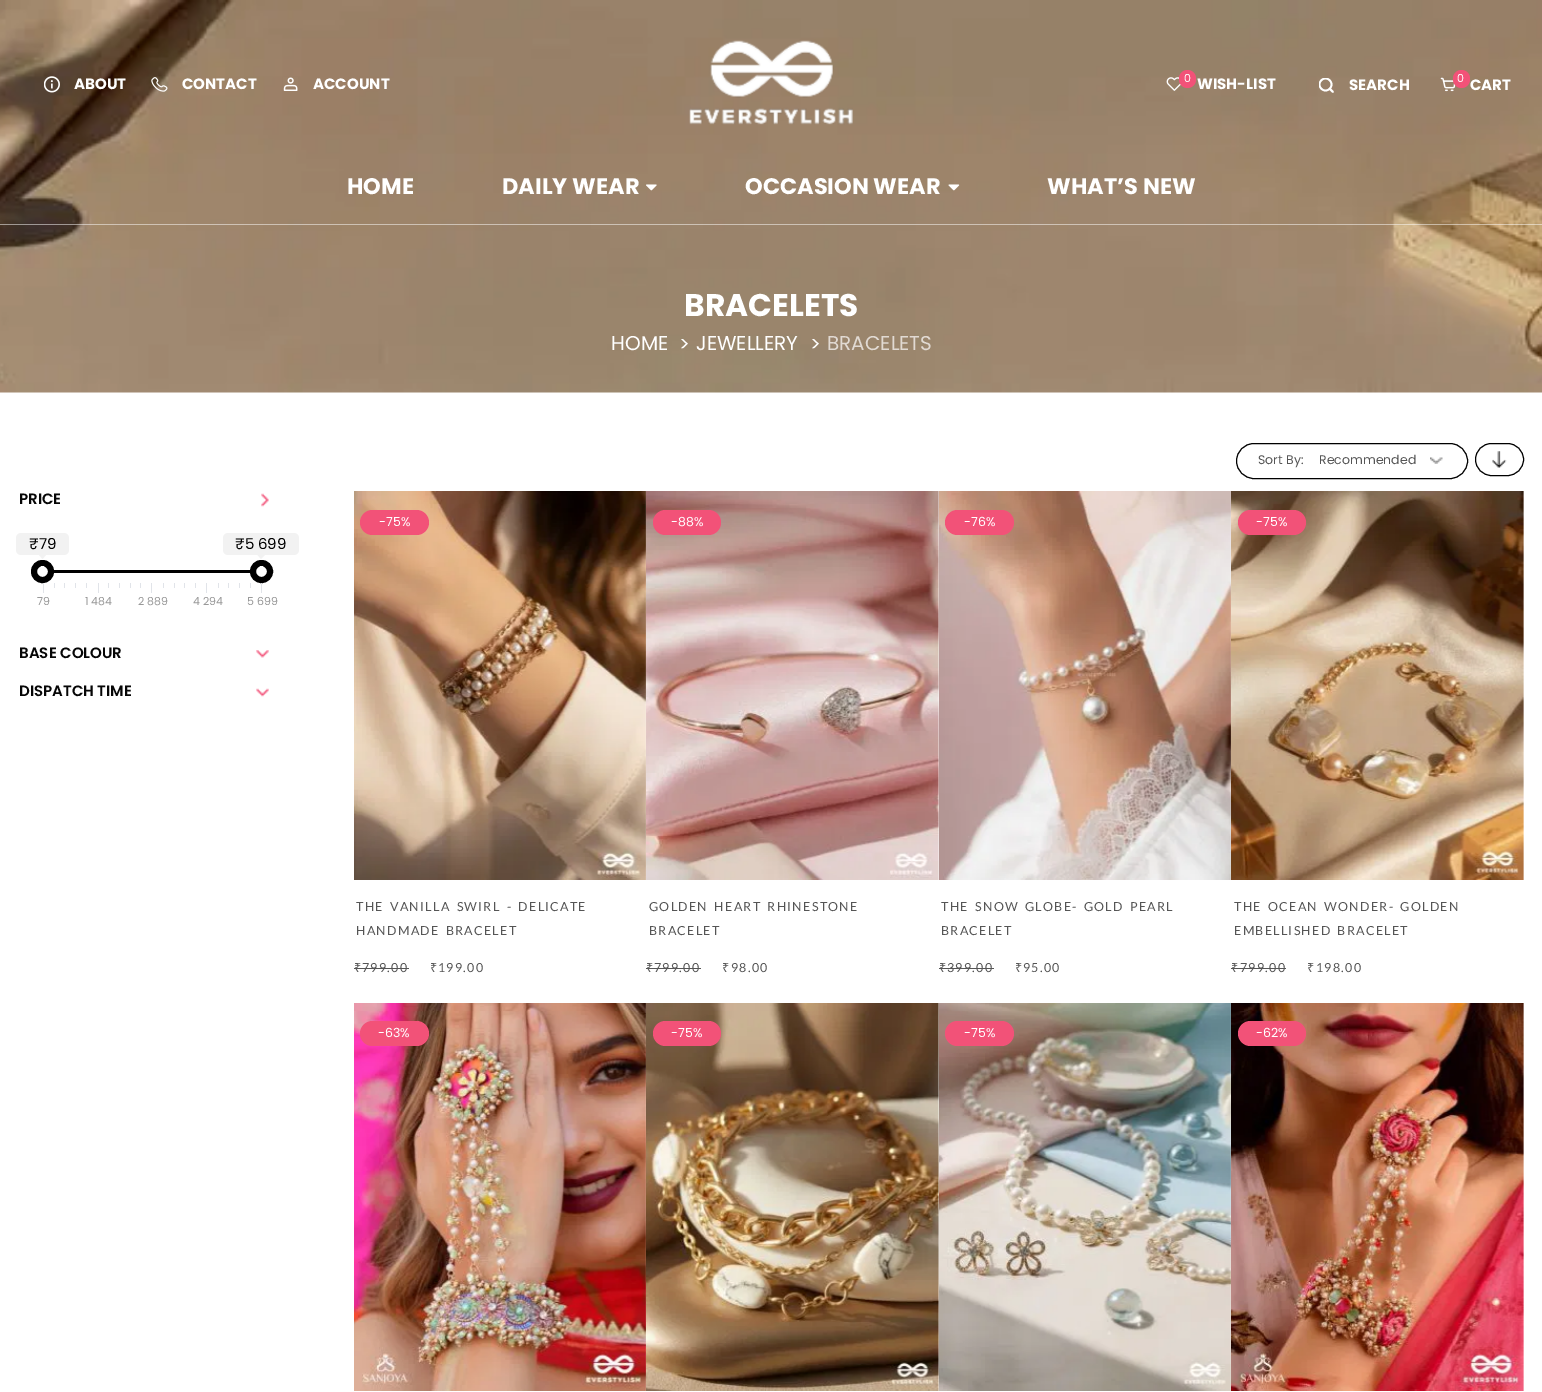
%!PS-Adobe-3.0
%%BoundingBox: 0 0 1542 1392
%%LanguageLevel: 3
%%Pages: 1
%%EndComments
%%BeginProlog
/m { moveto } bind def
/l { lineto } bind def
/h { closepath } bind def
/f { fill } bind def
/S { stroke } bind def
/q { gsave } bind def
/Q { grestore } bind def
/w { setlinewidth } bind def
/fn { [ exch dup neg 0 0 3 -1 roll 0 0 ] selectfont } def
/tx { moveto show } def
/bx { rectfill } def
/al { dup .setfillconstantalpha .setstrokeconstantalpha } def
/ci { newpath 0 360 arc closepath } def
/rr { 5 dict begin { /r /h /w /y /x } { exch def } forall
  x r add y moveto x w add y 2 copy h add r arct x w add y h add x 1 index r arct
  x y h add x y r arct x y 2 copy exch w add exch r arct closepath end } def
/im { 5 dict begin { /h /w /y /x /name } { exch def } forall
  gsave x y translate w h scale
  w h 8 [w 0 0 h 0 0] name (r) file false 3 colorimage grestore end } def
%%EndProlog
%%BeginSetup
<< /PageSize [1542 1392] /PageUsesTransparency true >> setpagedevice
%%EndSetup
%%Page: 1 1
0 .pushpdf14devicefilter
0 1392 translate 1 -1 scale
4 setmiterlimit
1 setgray
0 0 1542 1392 bx
(image8.raw) 0 0 1542 393 im
(image0.raw) 44 76 16 17 im
/Poppins-Bold 15 fn
(ABOUT) 74 89 tx
(image1.raw) 151 77 17 15 im
(CONTACT) 182 89 tx
(image2.raw) 283 77 15 14 im
(ACCOUNT) 313 89 tx
(image3.raw) 689 40 164 85 im
(image4.raw) 1166 77 15 14 im
0.949 0.322 0.471 setrgbcolor
1179 70 17 18 8.5 rr f
/Poppins-Regular 11 fn
1 setgray
(0) 1184 82 tx
/Poppins-Bold 15 fn
(WISH-LIST) 1197 89 tx
q
1319 78 16 16 rectclip
1.8 w
1325.5 84.5 6 ci S
Q
(SEARCH) 1349 90 tx
1.8 w
1 setlinecap
1330 89 m 1333 92 l S
(image5.raw) 1440 77 16 15 im
0.949 0.322 0.471 setrgbcolor
1453 70 17 18 8.5 rr f
/Poppins-Regular 11 fn
1 setgray
(0) 1457 82 tx
/Poppins-Bold 15 fn
(CART) 1470 90 tx
0.5 al
0 224 1542 1 bx
/Poppins-Bold 22.5 fn
1 al
(HOME) 347 194 tx
(DAILY WEAR) 502 194 tx
(image6.raw) 646 184 11 7 im
(OCCASION WEAR) 745 194 tx
(image7.raw) 948 184 12 7 im
(WHAT’S NEW) 1047 194 tx
/Poppins-Bold 31.25 fn
(BRACELETS) 684 316 tx
/Poppins-Regular 20 fn
(HOME) 611 350 tx
(>) 679 351 tx
(JEWELLERY) 696 350 tx
(>) 810 351 tx
0.882 0.855 0.827 setrgbcolor
(BRACELETS) 827 350 tx
/Poppins-SemiBold 15 fn
0.024 setgray
(PRICE) 19 504 tx
(image9.raw) 261 493 8 14 im
0.949 setgray
16 533 53 22 5 rr f
/Poppins-Regular 15 fn
0 setgray
(₹79) 29 549 tx
0.949 setgray
39 555 m 46 555 l 42.5 559 l h f
223 533 76 22 5 rr f
0 setgray
(₹5 699) 235 549 tx
0.949 setgray
257.5 555 m 265 555 l 261 559 l h f
0 setgray
53 570 198 3 bx
1 setgray
42.5 571.5 8.5 ci q f Q
0 setgray
6 w
0 setlinecap
S
1 setgray
41 566 3 1 bx
261.5 571.5 8.5 ci q f Q
0 setgray
S
1 setgray
260 566 3 1 bx
0.882 0.894 0.914 setrgbcolor
43 583 1 10 bx
54 583 1 5 bx
64 583 1 5 bx
75 583 1 5 bx
86 583 1 5 bx
98 583 1 10 bx
108 583 1 5 bx
119 583 1 5 bx
130 583 1 5 bx
140 583 1 5 bx
151 583 1 10 bx
163 583 1 5 bx
174 583 1 5 bx
184 583 1 5 bx
195 583 1 5 bx
206 583 1 10 bx
218 583 1 5 bx
228 583 1 5 bx
239 583 1 5 bx
250 583 1 5 bx
261 583 1 10 bx
/Poppins-Regular 11 fn
0.6 setgray
(79) 37 605 tx
(1 484) 85 605 tx
(2 889) 138 605 tx
(4 294) 193 605 tx
(5 699) 247 605 tx
/Poppins-SemiBold 15 fn
0.024 setgray
(BASE COLOUR) 19 658 tx
(image10.raw) 256 650 13 8 im
(DISPATCH TIME) 19 696 tx
(image11.raw) 256 688 13 9 im
0 setgray
1 w
1236.5 443.5 231 35 17.5 rr S
/Poppins-Regular 12.5 fn
0.333 setgray
(Sort By:) 1258 464 tx
(image12.raw) 1430 457 13 7 im
(Recommended) 1319 464 tx
0 setgray
1475.5 443.5 48 32 16 rr S
(image13.raw) 1492 451 15 17 im
(image14.raw) 354 491 292 389 im
0.949 0.322 0.471 setrgbcolor
360 510 69 25 12.5 rr f
1 setgray
(-75%) 379 526 tx
/Lato-Regular 12.5 fn
0.333 setgray
356 911 m 2.5 0 32 1.25 0 (THE VANILLA SWIRL - DELICATE) awidthshow
356 935 m 2.5 0 32 1.25 0 (HANDMADE BRACELET) awidthshow
/NotoSans-Regular 12.5 fn
354 972 m 1.25 0 (₹) ashow
354 968 55 1 bx
/Lato-Regular 12.5 fn
362 972 m 1.25 0 (799.00) ashow
/NotoSans-Regular 12.5 fn
430 972 m 1.25 0 (₹) ashow
/Lato-Regular 12.5 fn
438 972 m 1.25 0 (199.00) ashow
(image15.raw) 646 491 293 389 im
0.949 0.322 0.471 setrgbcolor
653 510 68 25 12.5 rr f
/Poppins-Regular 12.5 fn
1 setgray
(-88%) 671 526 tx
/Lato-Regular 12.5 fn
0.333 setgray
649 911 m 2.5 0 32 1.25 0 (GOLDEN HEART RHINESTONE) awidthshow
649 935 m 1.25 0 (BRACELET) ashow
/NotoSans-Regular 12.5 fn
646 972 m 1.25 0 (₹) ashow
646 968 55 1 bx
/Lato-Regular 12.5 fn
654 972 m 1.25 0 (799.00) ashow
/NotoSans-Regular 12.5 fn
722 972 m 1.25 0 (₹) ashow
/Lato-Regular 12.5 fn
731 972 m 1.25 0 (98.00) ashow
(image16.raw) 939 491 292 389 im
0.949 0.322 0.471 setrgbcolor
945 510 69 25 12.5 rr f
/Poppins-Regular 12.5 fn
1 setgray
(-76%) 964 526 tx
/Lato-Regular 12.5 fn
0.333 setgray
941 911 m 2.5 0 32 1.25 0 (THE SNOW GLOBE- GOLD PEARL) awidthshow
941 935 m 1.25 0 (BRACELET) ashow
/NotoSans-Regular 12.5 fn
939 972 m 1.25 0 (₹) ashow
939 968 55 1 bx
/Lato-Regular 12.5 fn
947 972 m 1.25 0 (399.00) ashow
/NotoSans-Regular 12.5 fn
1015 972 m 1.25 0 (₹) ashow
/Lato-Regular 12.5 fn
1023 972 m 1.25 0 (95.00) ashow
(image17.raw) 1231 491 293 389 im
0.949 0.322 0.471 setrgbcolor
1238 510 68 25 12.5 rr f
/Poppins-Regular 12.5 fn
1 setgray
(-75%) 1256 526 tx
/Lato-Regular 12.5 fn
0.333 setgray
1234 911 m 2.5 0 32 1.25 0 (THE OCEAN WONDER- GOLDEN) awidthshow
1234 935 m 2.5 0 32 1.25 0 (EMBELLISHED BRACELET) awidthshow
/NotoSans-Regular 12.5 fn
1231 972 m 1.25 0 (₹) ashow
1231 968 55 1 bx
/Lato-Regular 12.5 fn
1240 972 m 1.25 0 (799.00) ashow
/NotoSans-Regular 12.5 fn
1307 972 m 1.25 0 (₹) ashow
/Lato-Regular 12.5 fn
1316 972 m 1.25 0 (198.00) ashow
(image18.raw) 354 1003 292 388 im
0.949 0.322 0.471 setrgbcolor
360 1021 69 25 12.5 rr f
/Poppins-Regular 12.5 fn
1 setgray
(-63%) 378 1037 tx
(image19.raw) 646 1003 293 388 im
0.949 0.322 0.471 setrgbcolor
653 1021 68 25 12.5 rr f
1 setgray
(-75%) 671 1037 tx
(image20.raw) 939 1003 292 388 im
0.949 0.322 0.471 setrgbcolor
945 1021 69 25 12.5 rr f
1 setgray
(-75%) 964 1037 tx
(image21.raw) 1231 1003 293 388 im
0.949 0.322 0.471 setrgbcolor
1238 1021 68 25 12.5 rr f
1 setgray
(-62%) 1256 1037 tx
.poppdf14devicefilter showpage
%%EOF
